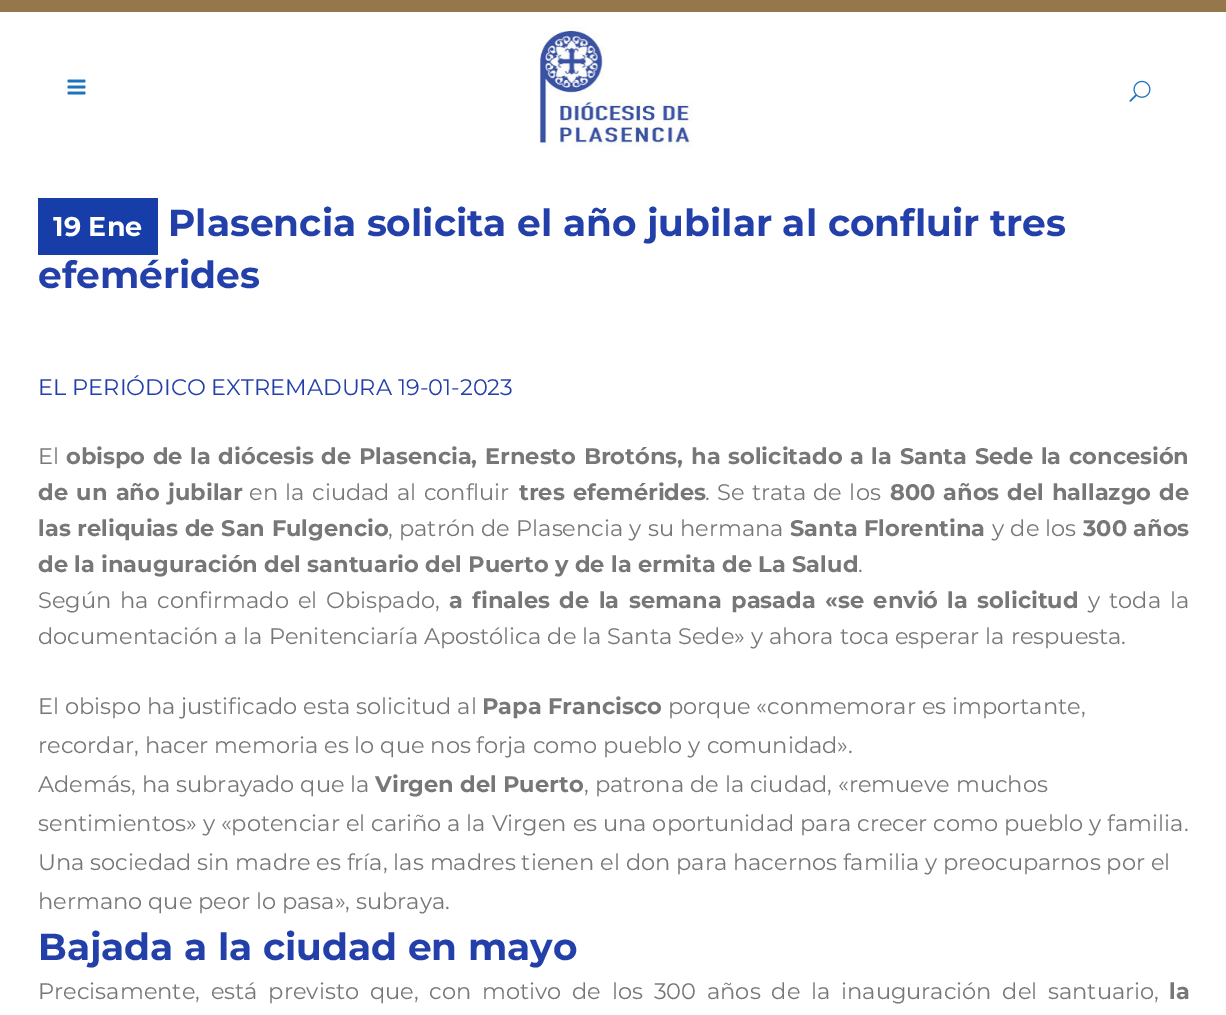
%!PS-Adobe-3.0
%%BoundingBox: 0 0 1226 1015
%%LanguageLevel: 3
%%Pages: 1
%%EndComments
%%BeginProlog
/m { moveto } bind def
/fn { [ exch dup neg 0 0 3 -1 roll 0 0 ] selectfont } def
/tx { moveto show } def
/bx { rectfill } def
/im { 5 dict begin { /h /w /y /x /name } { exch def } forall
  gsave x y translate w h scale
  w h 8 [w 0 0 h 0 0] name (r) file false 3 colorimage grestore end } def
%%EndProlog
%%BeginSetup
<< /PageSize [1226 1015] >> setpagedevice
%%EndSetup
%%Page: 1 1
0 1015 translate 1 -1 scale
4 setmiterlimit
1 setgray
0 0 1226 1015 bx
0.58 0.467 0.294 setrgbcolor
0 0 1226 12 bx
(image0.raw) 67 79 19 16 im
(image1.raw) 539 27 154 120 im
(image2.raw) 1129 80 22 22 im
0.09 0.243 0.659 setrgbcolor
38 198 120 57 bx
/Montserrat-Bold 27 fn
1 setgray
(19 Ene) 53 236 tx
/Montserrat-Bold 37.5 fn
0.137 0.247 0.667 setrgbcolor
(Plasencia solicita el año jubilar al confluir tres) 168 236 tx
(efemérides) 38 288 tx
/Montserrat-Regular 22.5 fn
(EL PERIÓDICO EXTREMADURA 19-01-2023) 38 395 tx
0.467 setgray
(El) 38 464 tx
/Montserrat-Bold 22.5 fn
66 464 m 1.25 0 32 (obispo de la diócesis de Plasencia, Ernesto Brotóns,) widthshow
691 464 m 1.25 0 32 (ha solicitado a la Santa Sede la concesión) widthshow
38 500 m 2 0 32 (de un año jubilar) widthshow
/Montserrat-Regular 22.5 fn
249 500 m 1.5 0 32 (en la ciudad al confluir) widthshow
/Montserrat-Bold 22.5 fn
519 500 m 2 0 32 (tres efemérides) widthshow
/Montserrat-Regular 22.5 fn
705 500 m 1.5 0 32 (. Se trata de los) widthshow
/Montserrat-Bold 22.5 fn
890 500 m 1.5 0 32 (800 años del hallazgo de) widthshow
38 536 m 0.25 0 32 (las reliquias de San Fulgencio) widthshow
/Montserrat-Regular 22.5 fn
388 536 m 0.25 0 32 (, patrón de Plasencia y su hermana) widthshow
/Montserrat-Bold 22.5 fn
(Santa Florentina) 790 536 tx
/Montserrat-Regular 22.5 fn
992 536 m 0.25 0 32 (y de los) widthshow
/Montserrat-Bold 22.5 fn
(300 años) 1083 536 tx
(de la inauguración del santuario del Puerto y de la ermita de La Salud) 38 572 tx
/Montserrat-Regular 22.5 fn
(.) 858 572 tx
38 608 m 3 0 32 (Según ha confirmado el Obispado,) widthshow
/Montserrat-Bold 22.5 fn
449 608 m 3 0 32 (a finales de la semana pasada «se envió la solicitud) widthshow
/Montserrat-Regular 22.5 fn
1088 608 m 3 0 32 (y toda la) widthshow
(documentación a la Penitenciaría Apostólica de la Santa Sede» y ahora toca esperar la respuesta.) 38 644 tx
(El obispo ha justificado esta solicitud al) 38 714 tx
/Montserrat-Bold 22.5 fn
(Papa Francisco) 482 714 tx
/Montserrat-Regular 22.5 fn
(porque «conmemorar es importante,) 668 714 tx
(recordar, hacer memoria es lo que nos forja como pueblo y comunidad».) 38 753 tx
(Además, ha subrayado que la) 38 792 tx
/Montserrat-Bold 22.5 fn
(Virgen del Puerto) 375 792 tx
/Montserrat-Regular 22.5 fn
(, patrona de la ciudad, «remueve muchos) 584 792 tx
(sentimientos» y «potenciar el cariño a la Virgen es una oportunidad para crecer como pueblo y familia.) 38 831 tx
(Una sociedad sin madre es fría, las madres tienen el don para hacernos familia y preocuparnos por el) 38 870 tx
(hermano que peor lo pasa», subraya.) 38 909 tx
/Montserrat-Bold 37.5 fn
0.137 0.247 0.667 setrgbcolor
(Bajada a la ciudad en mayo) 38 960 tx
/Montserrat-Regular 22.5 fn
0.467 setgray
38 999 m 4.9 0 32 (Precisamente, está previsto que, con motivo de los 300 años de la inauguración del santuario,) widthshow
/Montserrat-Bold 22.5 fn
(la) 1169 999 tx
showpage
%%EOF
